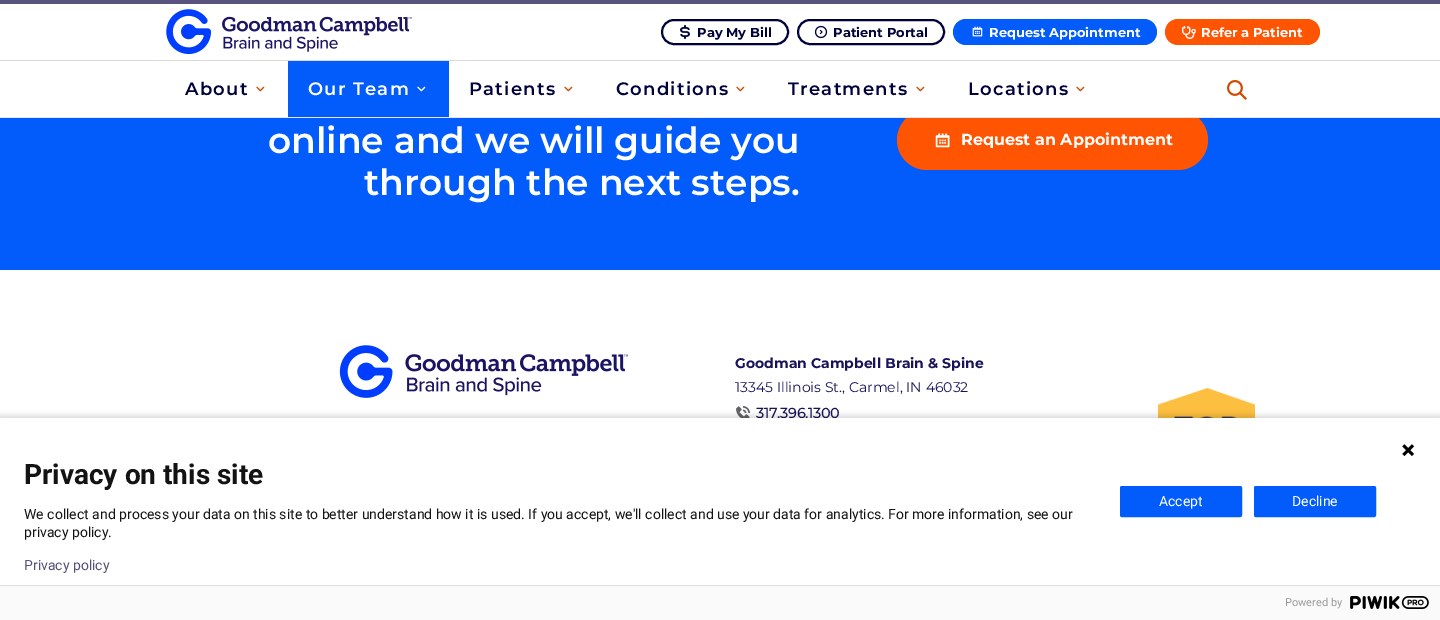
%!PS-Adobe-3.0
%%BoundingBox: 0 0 1440 620
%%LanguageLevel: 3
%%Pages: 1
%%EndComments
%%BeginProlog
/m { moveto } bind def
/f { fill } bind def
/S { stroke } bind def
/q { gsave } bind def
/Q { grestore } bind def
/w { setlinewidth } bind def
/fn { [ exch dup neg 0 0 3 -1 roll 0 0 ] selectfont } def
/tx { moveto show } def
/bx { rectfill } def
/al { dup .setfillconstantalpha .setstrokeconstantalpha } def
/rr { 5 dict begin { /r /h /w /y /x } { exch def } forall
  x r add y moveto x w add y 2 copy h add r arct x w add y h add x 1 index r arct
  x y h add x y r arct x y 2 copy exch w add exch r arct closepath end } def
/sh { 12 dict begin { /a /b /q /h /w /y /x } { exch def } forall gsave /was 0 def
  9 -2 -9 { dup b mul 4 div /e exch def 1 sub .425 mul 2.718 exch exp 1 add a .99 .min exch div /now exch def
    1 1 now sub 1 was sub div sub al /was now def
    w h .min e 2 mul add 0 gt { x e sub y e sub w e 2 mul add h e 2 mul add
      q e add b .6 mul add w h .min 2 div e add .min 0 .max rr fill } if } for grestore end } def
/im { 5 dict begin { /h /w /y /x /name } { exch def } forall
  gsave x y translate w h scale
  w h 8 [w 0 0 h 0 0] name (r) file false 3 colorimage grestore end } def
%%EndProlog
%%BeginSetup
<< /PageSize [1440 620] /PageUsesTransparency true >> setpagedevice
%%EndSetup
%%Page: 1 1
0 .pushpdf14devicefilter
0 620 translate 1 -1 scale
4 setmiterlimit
1 setgray
0 0 1440 620 bx
0.004 0.361 0.984 setrgbcolor
0 118 1440 152 bx
1 0.329 0.008 setrgbcolor
897 110 311 60 30 rr f
1 setgray
907 110 291 7 bx
0.345 0.329 0.494 setrgbcolor
0 0 1440 4 bx
(image0.raw) 166 9 246 45 im
0 0 0.239 setrgbcolor
2 w
662 20 126 24 12 rr S
(image1.raw) 680 25 10 14 im
/Montserrat-Bold 13 fn
(Pay My Bill) 697 37 tx
798 20 146 24 12 rr S
(image2.raw) 814 25 14 14 im
(Patient Portal) 833 37 tx
0.004 0.361 0.984 setrgbcolor
953 19 204 26 13 rr f
(image3.raw) 972 26 11 11 im
1 setgray
(Request Appointment) 989 37 tx
1 0.329 0.008 setrgbcolor
1165 19 155 26 13 rr f
(image4.raw) 1182 26 14 13 im
1 setgray
(Refer a Patient) 1201 37 tx
0.855 0.851 0.843 setrgbcolor
0 60 1440 1 bx
/Montserrat-SemiBold 18 fn
0 0 0.239 setrgbcolor
185 95 m 1.25 0 (About) ashow
(image5.raw) 256 86 9 6 im
0.004 0.361 0.984 setrgbcolor
288 61 161 56 bx
1 setgray
308 95 m 1.25 0 (Our Team) ashow
(image6.raw) 417 86 9 6 im
0 0 0.239 setrgbcolor
469 95 m 1.25 0 (Patients) ashow
(image5.raw) 564 86 9 6 im
616 95 m 1.25 0 (Conditions) ashow
(image5.raw) 736 86 9 6 im
788 95 m 1.25 0 (Treatments) ashow
(image5.raw) 916 86 9 6 im
968 95 m 1.25 0 (Locations) ashow
(image5.raw) 1076 86 9 6 im
(image7.raw) 1227 80 20 20 im
0.91 setgray
0 117 1440 1 bx
/Montserrat-SemiBold 36 fn
1 setgray
(online and we will guide you) 268 153 tx
(through the next steps.) 364 195 tx
(image8.raw) 935 133 15 15 im
/Montserrat-Bold 16 fn
(Request an Appointment) 961 145 tx
(image9.raw) 339 345 289 53 im
/Montserrat-Bold 14 fn
0.094 0.075 0.345 setrgbcolor
(Goodman Campbell Brain & Spine) 735 368 tx
/Montserrat-Regular 14 fn
(13345 Illinois St., Carmel, IN 46032) 735 392 tx
(image10.raw) 736 406 14 12 im
/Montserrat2-Bold 14 fn
(317.396.1300) 756 418 tx
(image11.raw) 1158 388 97 30 im
0 setgray
-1 415 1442 204 0 2.5 0.14 sh
1 setgray
0 418 1440 167 bx
(image12.raw) 1402 444 13 13 im
/Roboto-Bold 28 fn
0.075 setgray
(Privacy on this site) 24 484 tx
/Roboto-Regular 14 fn
(We collect and process your data on this site to better understand how it is used. If you accept, we'll collect and use your data for analytics. For more information, see our) 24 519 tx
(privacy policy.) 24 537 tx
0.333 0.318 0.482 setrgbcolor
(Privacy policy) 24 570 tx
0.004 0.361 0.984 setrgbcolor
1120.5 486.5 121 30 1.5 rr q f Q
1 w
S
1 setgray
(Accept) 1159 506 tx
0.004 0.361 0.984 setrgbcolor
1254.5 486.5 121 30 1.5 rr q f Q
S
1 setgray
(Decline) 1292 506 tx
0.98 setgray
0 586 1440 34 bx
0.867 setgray
0 585 1440 1 bx
/Roboto-Regular 11 fn
0.6 setgray
(Powered by) 1285 606 tx
(image13.raw) 1350 596 79 13 im
.poppdf14devicefilter showpage
%%EOF
